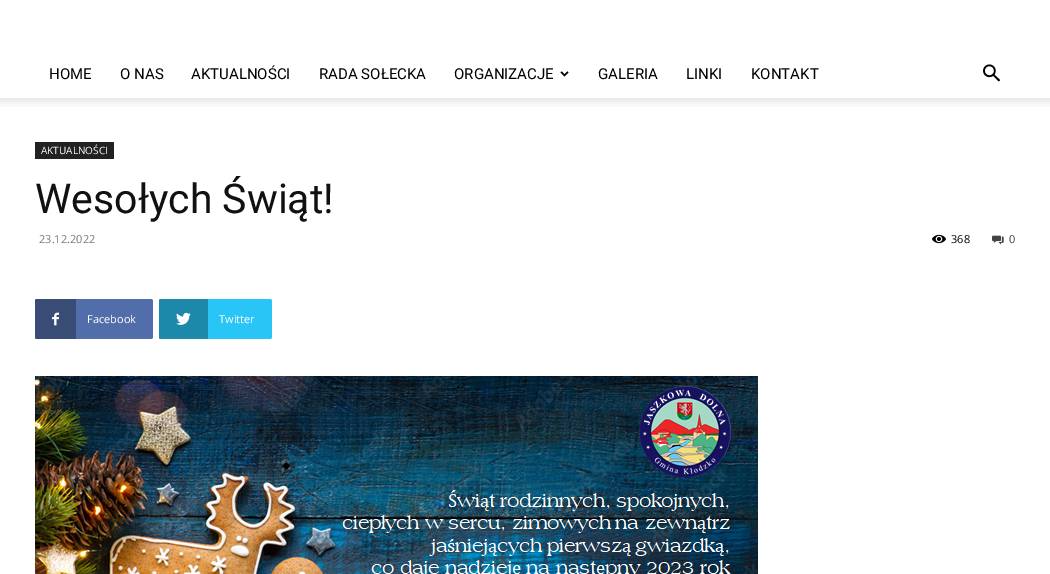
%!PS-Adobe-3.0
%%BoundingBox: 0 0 1050 574
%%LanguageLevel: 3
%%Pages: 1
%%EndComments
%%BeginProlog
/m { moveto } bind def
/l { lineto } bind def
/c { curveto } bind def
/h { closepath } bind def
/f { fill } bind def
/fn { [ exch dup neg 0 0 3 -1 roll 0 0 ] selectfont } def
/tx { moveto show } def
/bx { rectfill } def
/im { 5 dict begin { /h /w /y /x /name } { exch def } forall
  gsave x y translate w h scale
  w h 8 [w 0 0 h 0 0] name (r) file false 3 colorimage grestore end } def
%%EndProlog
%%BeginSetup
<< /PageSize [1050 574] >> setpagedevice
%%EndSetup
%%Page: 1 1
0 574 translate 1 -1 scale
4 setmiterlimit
1 setgray
0 0 1050 574 bx
0.69 setgray
159 299 2 40 bx
35 299 2 40 bx
/Roboto-Regular 15 fn
0 setgray
(HOME) 49 79 tx
(O NAS) 120 79 tx
(AKTUALNOŚCI) 191 79 tx
(RADA SOŁECKA) 319 79 tx
(ORGANIZACJE) 454 79 tx
(image0.raw) 560 71 9 6 im
(GALERIA) 598 79 tx
(LINKI) 686 79 tx
(KONTAKT) 751 79 tx
(image1.raw) 983 64 17 18 im
(image2.raw) 0 98 1050 9 im
0.133 setgray
35 142 79 17 bx
/OpenSans-Regular 10 fn
1 setgray
(AKTUALNOŚCI) 41 154 tx
/Roboto-Regular 41 fn
0.067 setgray
(Wesołych Świąt!) 35 213 tx
/OpenSans-Regular 11 fn
0.463 setgray
(23.12.2022) 39 243 tx
(image3.raw) 932 234 14 10 im
0 setgray
(368) 951 243 tx
(image4.raw) 992 235 12 10 im
0.267 setgray
(0) 1009 243 tx
0.318 0.431 0.671 setrgbcolor
70 299 m 151 299 l 152 299 153 300 153 301 c 153 337 l 153 338 152 339 151 339 c 70 339 l h f
0.22 0.298 0.463 setrgbcolor
37 299 m 76 299 l 76 339 l 37 339 l 36 339 35 338 35 337 c 35 301 l 35 300 36 299 37 299 c h f
(image5.raw) 52 312 7 14 im
1 setgray
(Facebook) 87 323 tx
0.161 0.773 0.965 setrgbcolor
202 299 m 270 299 l 271 299 272 300 272 301 c 272 337 l 272 338 271 339 270 339 c 202 339 l h f
0.11 0.533 0.667 setrgbcolor
161 299 m 208 299 l 208 339 l 161 339 l 160 339 159 338 159 337 c 159 301 l 159 300 160 299 161 299 c h f
(image6.raw) 176 312 15 13 im
1 setgray
(Twitter) 219 323 tx
(image7.raw) 35 376 723 198 im
showpage
%%EOF
